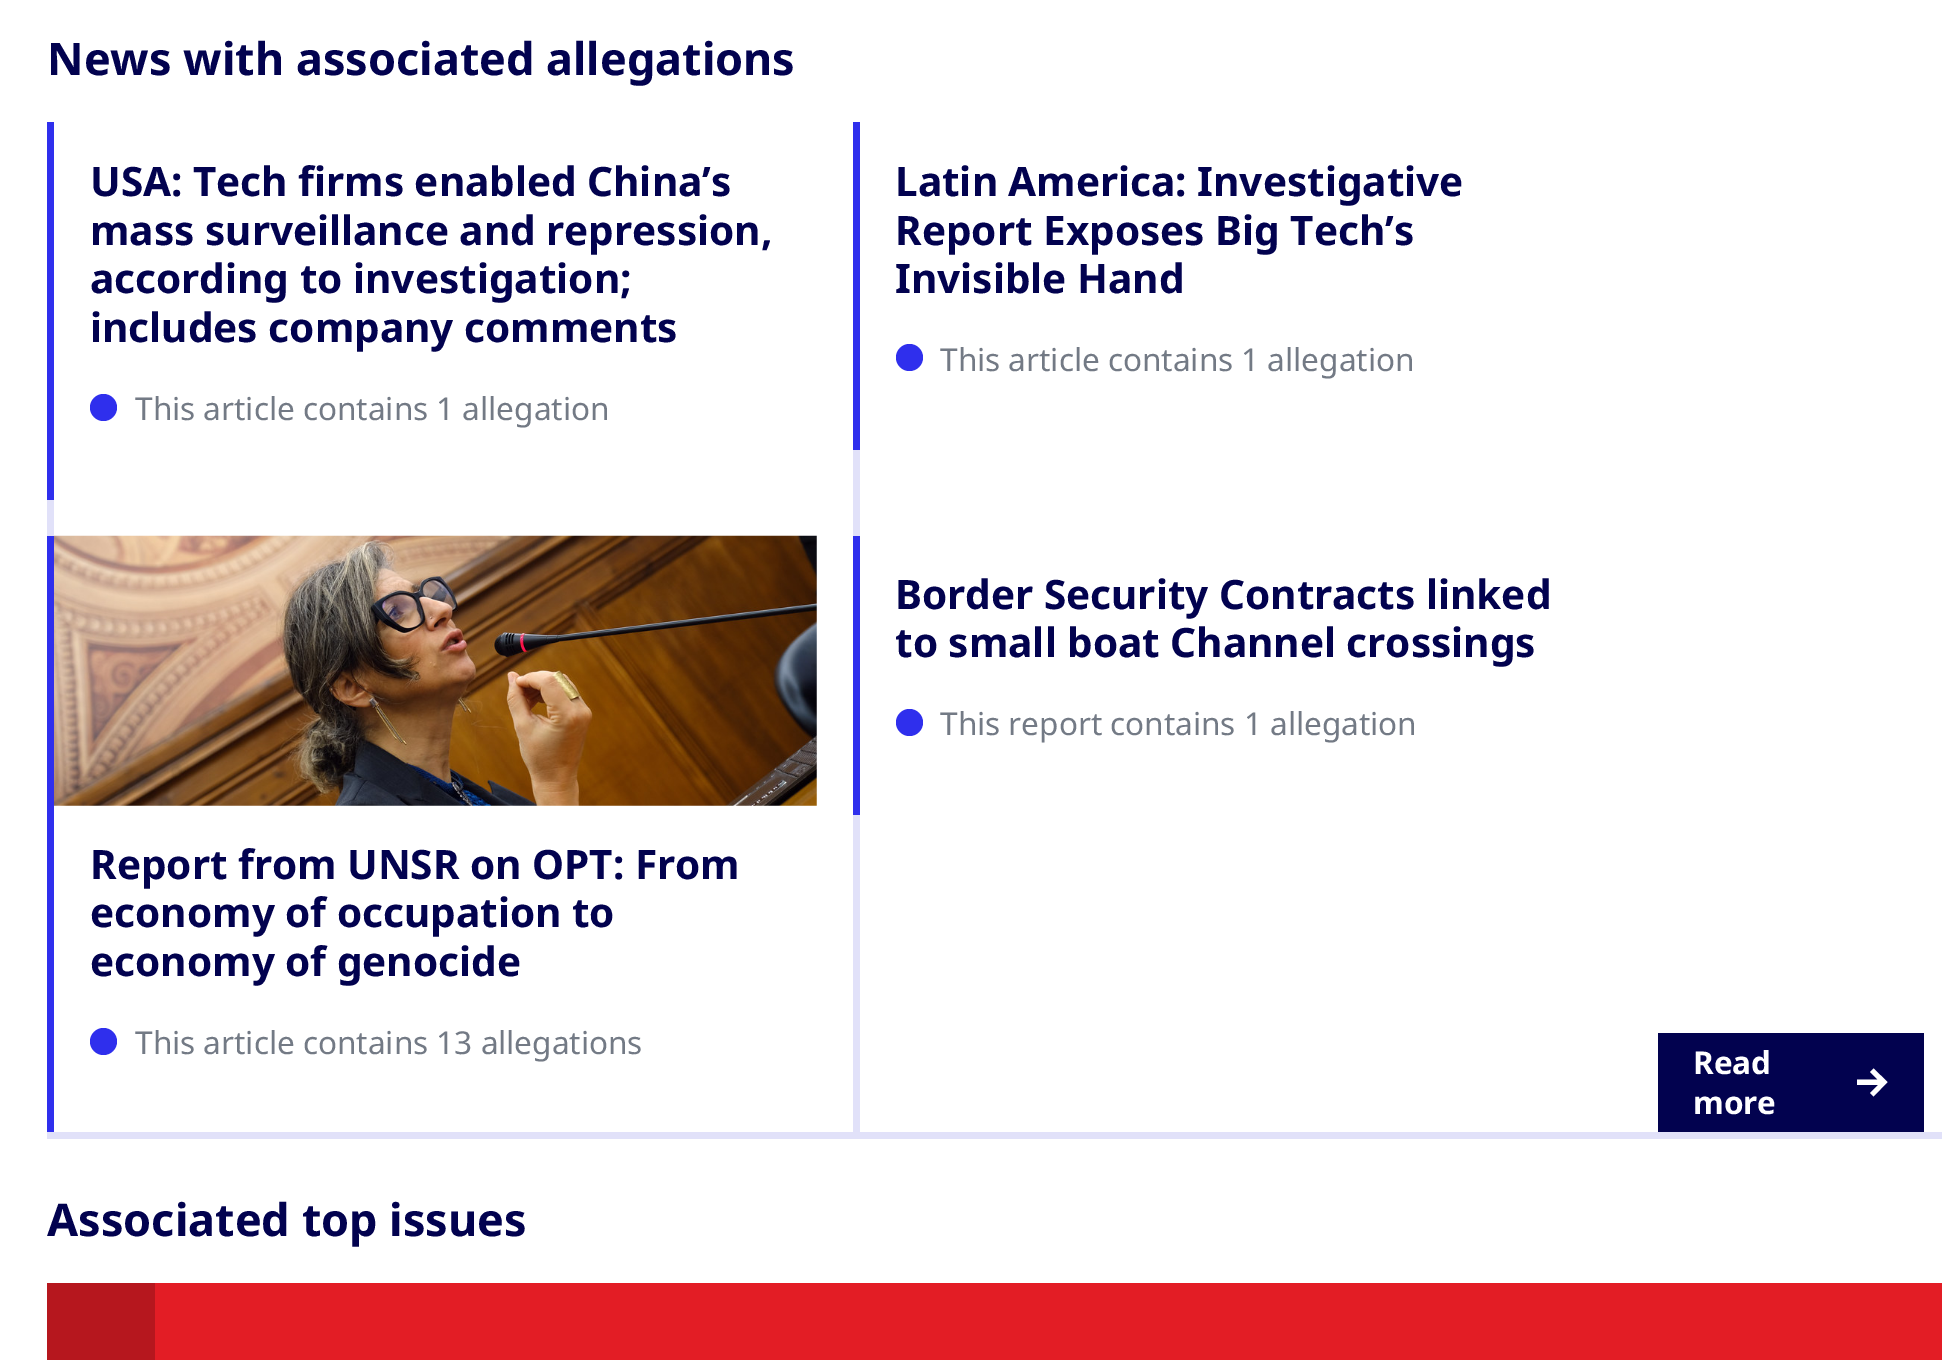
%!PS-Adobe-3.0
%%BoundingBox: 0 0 1952 1360
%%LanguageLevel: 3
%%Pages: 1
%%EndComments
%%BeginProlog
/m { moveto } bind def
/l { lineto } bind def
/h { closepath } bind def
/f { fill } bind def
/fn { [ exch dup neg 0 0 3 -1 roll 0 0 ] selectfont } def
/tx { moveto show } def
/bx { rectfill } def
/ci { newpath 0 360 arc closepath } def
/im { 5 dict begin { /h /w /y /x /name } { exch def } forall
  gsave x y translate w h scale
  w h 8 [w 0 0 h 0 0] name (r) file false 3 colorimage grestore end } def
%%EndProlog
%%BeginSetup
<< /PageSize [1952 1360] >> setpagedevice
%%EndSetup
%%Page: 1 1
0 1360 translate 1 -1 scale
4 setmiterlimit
1 setgray
0 0 1952 1360 bx
/NotoSans-Bold 45 fn
0.008 0.008 0.31 setrgbcolor
(News with associated allegations) 47 75 tx
0.882 0.882 0.976 setrgbcolor
47 1132 1895 7 bx
0.184 0.184 0.929 setrgbcolor
47 122 7 378 bx
/NotoSans-Bold 40.5 fn
0.008 0.008 0.31 setrgbcolor
(USA: Tech firms enabled China’s) 90 196 tx
(mass surveillance and repression,) 90 245 tx
(according to investigation;) 90 293 tx
(includes company comments) 90 342 tx
0.184 0.184 0.929 setrgbcolor
103.5 407.5 13.5 ci f
/NotoSans-Regular 31.5 fn
0.451 0.478 0.522 setrgbcolor
(This article contains 1 allegation) 135 420 tx
0.184 0.184 0.929 setrgbcolor
853 122 7 328 bx
/NotoSans-Bold 40.5 fn
0.008 0.008 0.31 setrgbcolor
(Latin America: Investigative) 895 196 tx
(Report Exposes Big Tech’s) 895 245 tx
(Invisible Hand) 895 293 tx
0.184 0.184 0.929 setrgbcolor
909.5 357.5 13.5 ci f
/NotoSans-Regular 31.5 fn
0.451 0.478 0.522 setrgbcolor
(This article contains 1 allegation) 940 371 tx
0.882 0.882 0.976 setrgbcolor
853 450 7 682 bx
0.184 0.184 0.929 setrgbcolor
853 536 7 279 bx
/NotoSans-Bold 40.5 fn
0.008 0.008 0.31 setrgbcolor
(Border Security Contracts linked) 895 609 tx
(to small boat Channel crossings) 895 657 tx
0.184 0.184 0.929 setrgbcolor
909.5 722.5 13.5 ci f
/NotoSans-Regular 31.5 fn
0.451 0.478 0.522 setrgbcolor
(This report contains 1 allegation) 940 735 tx
0.882 0.882 0.976 setrgbcolor
47 500 7 36 bx
0.184 0.184 0.929 setrgbcolor
47 536 7 596 bx
(image0.raw) 54 535 763 271 im
/NotoSans-Bold 40.5 fn
0.008 0.008 0.31 setrgbcolor
(Report from UNSR on OPT: From) 90 879 tx
(economy of occupation to) 90 927 tx
(economy of genocide) 90 976 tx
0.184 0.184 0.929 setrgbcolor
103.5 1041.5 13.5 ci f
/NotoSans-Regular 31.5 fn
0.451 0.478 0.522 setrgbcolor
(This article contains 13 allegations) 135 1054 tx
0.008 0.008 0.31 setrgbcolor
1658 1033 266 99 bx
/NotoSans-Bold 31.5 fn
1 setgray
(Read) 1693 1074 tx
1873.5 1068.5 m 1887.5 1082 l 1873.5 1096.5 l 1870 1093 l 1878 1085 l 1857 1085 l 1857 1079.5 l 1877.5 1079.5 l 1870 1072 l h f
(more) 1693 1114 tx
/NotoSans-Bold 45 fn
0.008 0.008 0.31 setrgbcolor
(Associated top issues) 47 1236 tx
0.89 0.114 0.145 setrgbcolor
155 1283 1787 77 bx
0.714 0.09 0.118 setrgbcolor
47 1283 108 77 bx
showpage
%%EOF
